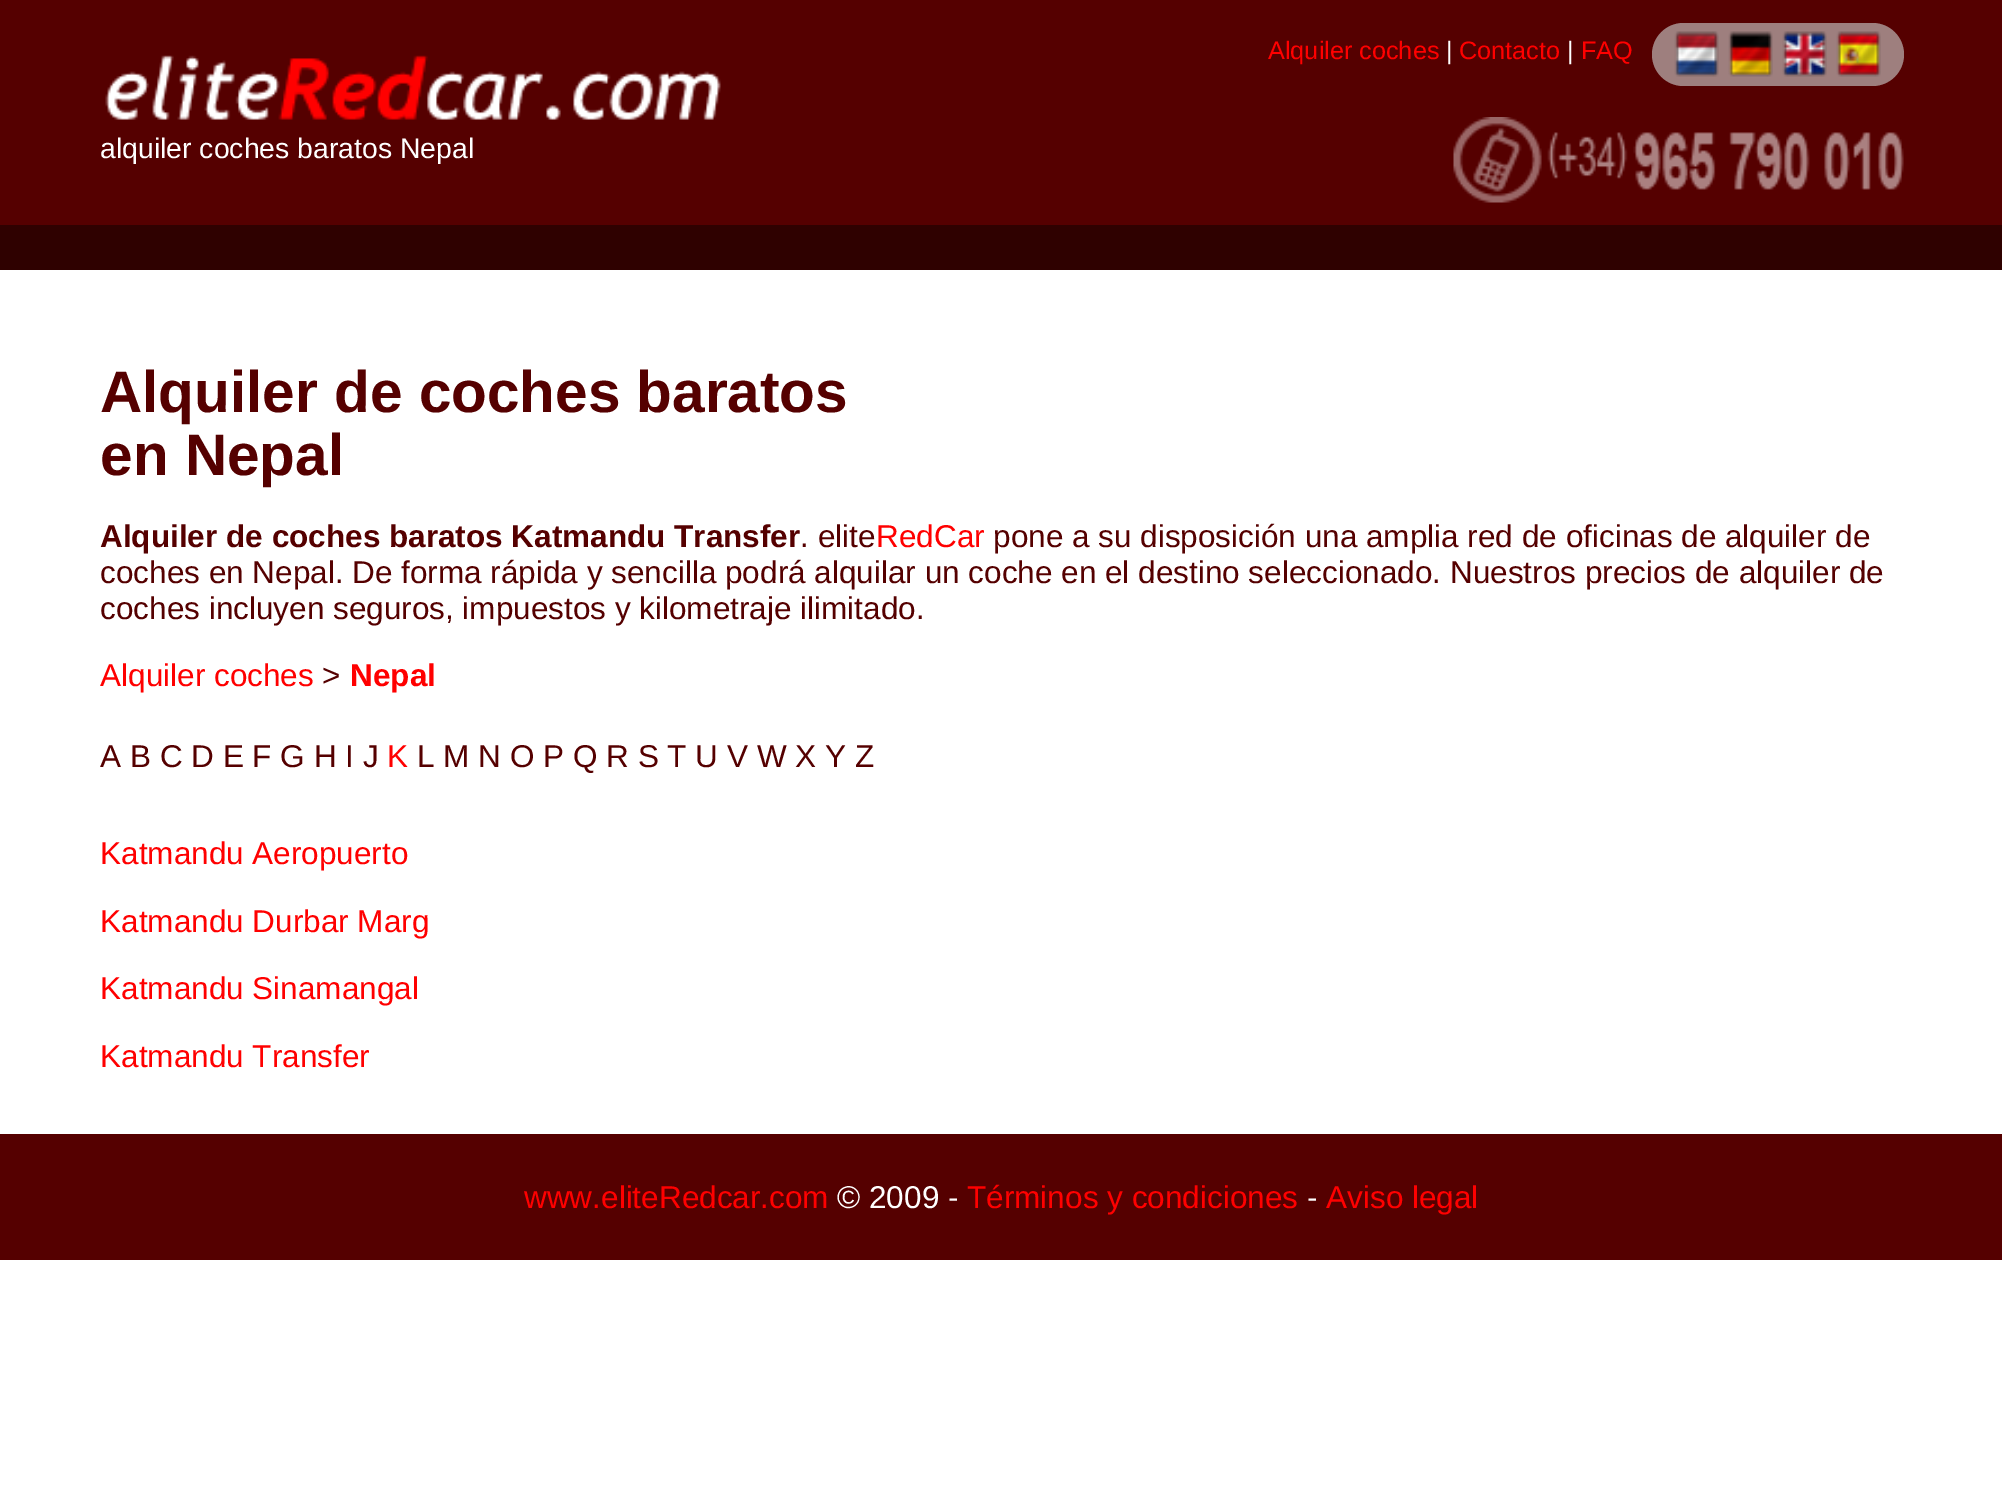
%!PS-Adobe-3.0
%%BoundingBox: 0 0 2002 1501
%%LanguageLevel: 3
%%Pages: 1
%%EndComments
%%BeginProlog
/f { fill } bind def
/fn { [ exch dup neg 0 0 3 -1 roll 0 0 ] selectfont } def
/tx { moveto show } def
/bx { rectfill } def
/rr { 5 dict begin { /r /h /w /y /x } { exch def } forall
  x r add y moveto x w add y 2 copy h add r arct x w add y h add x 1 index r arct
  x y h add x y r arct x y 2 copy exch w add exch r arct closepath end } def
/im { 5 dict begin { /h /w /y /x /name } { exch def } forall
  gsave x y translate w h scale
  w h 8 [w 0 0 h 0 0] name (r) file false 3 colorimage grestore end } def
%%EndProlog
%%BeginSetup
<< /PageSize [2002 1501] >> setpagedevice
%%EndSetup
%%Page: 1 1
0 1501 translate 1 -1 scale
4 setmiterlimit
1 setgray
0 0 2002 1501 bx
0.333 0 0 setrgbcolor
0 0 2002 225 bx
/LiberationSans-Regular 25.25 fn
1 0 0 setrgbcolor
(Alquiler coches) 1268 59 tx
1 setgray
(|) 1446 59 tx
1 0 0 setrgbcolor
(Contacto) 1459 59 tx
1 setgray
(|) 1567 59 tx
1 0 0 setrgbcolor
(FAQ) 1581 59 tx
0.62 0.498 0.494 setrgbcolor
1652 23 252 63 31.5 rr f
(image0.raw) 1674 31 45 46 im
(image1.raw) 1728 31 45 46 im
(image2.raw) 1782 31 45 46 im
(image3.raw) 1836 31 45 46 im
(image4.raw) 105 55 616 65 im
/LiberationSans-Regular 28.4 fn
1 setgray
(alquiler coches baratos Nepal) 100 158 tx
(image5.raw) 1453 117 451 86 im
0.184 0.004 0 setrgbcolor
0 225 2002 45 bx
/LiberationSans-Bold 58.5 fn
0.333 0 0 setrgbcolor
(Alquiler de coches baratos) 100 412 tx
(en Nepal) 100 475 tx
/LiberationSans-Bold 31.5 fn
(Alquiler de coches baratos Katmandu Transfer) 100 547 tx
/LiberationSans-Regular 31.5 fn
(. elite) 800 547 tx
1 0 0 setrgbcolor
(RedCar) 876 547 tx
0.333 0 0 setrgbcolor
(pone a su disposición una amplia red de oficinas de alquiler de) 993 547 tx
(coches en Nepal. De forma rápida y sencilla podrá alquilar un coche en el destino seleccionado. Nuestros precios de alquiler de) 100 583 tx
(coches incluyen seguros, impuestos y kilometraje ilimitado.) 100 619 tx
1 0 0 setrgbcolor
(Alquiler coches) 100 686 tx
0.333 0 0 setrgbcolor
(>) 322 686 tx
/LiberationSans-Bold 31.5 fn
1 0 0 setrgbcolor
(Nepal) 350 686 tx
/LiberationSans-Regular 31.5 fn
0.333 0 0 setrgbcolor
(A B C D E F G H I J) 100 767 tx
1 0 0 setrgbcolor
(K) 387 767 tx
0.333 0 0 setrgbcolor
(L M N O P Q R S T U V W X Y Z) 417 767 tx
1 0 0 setrgbcolor
(Katmandu Aeropuerto) 100 864 tx
(Katmandu Durbar Marg) 100 932 tx
(Katmandu Sinamangal) 100 999 tx
(Katmandu Transfer) 100 1067 tx
0.333 0 0 setrgbcolor
0 1134 2002 126 bx
1 0 0 setrgbcolor
(www.eliteRedcar.com) 524 1208 tx
1 setgray
(© 2009 -) 837 1208 tx
1 0 0 setrgbcolor
(Términos y condiciones) 967 1208 tx
1 setgray
(-) 1307 1208 tx
1 0 0 setrgbcolor
(Aviso legal) 1326 1208 tx
showpage
%%EOF
